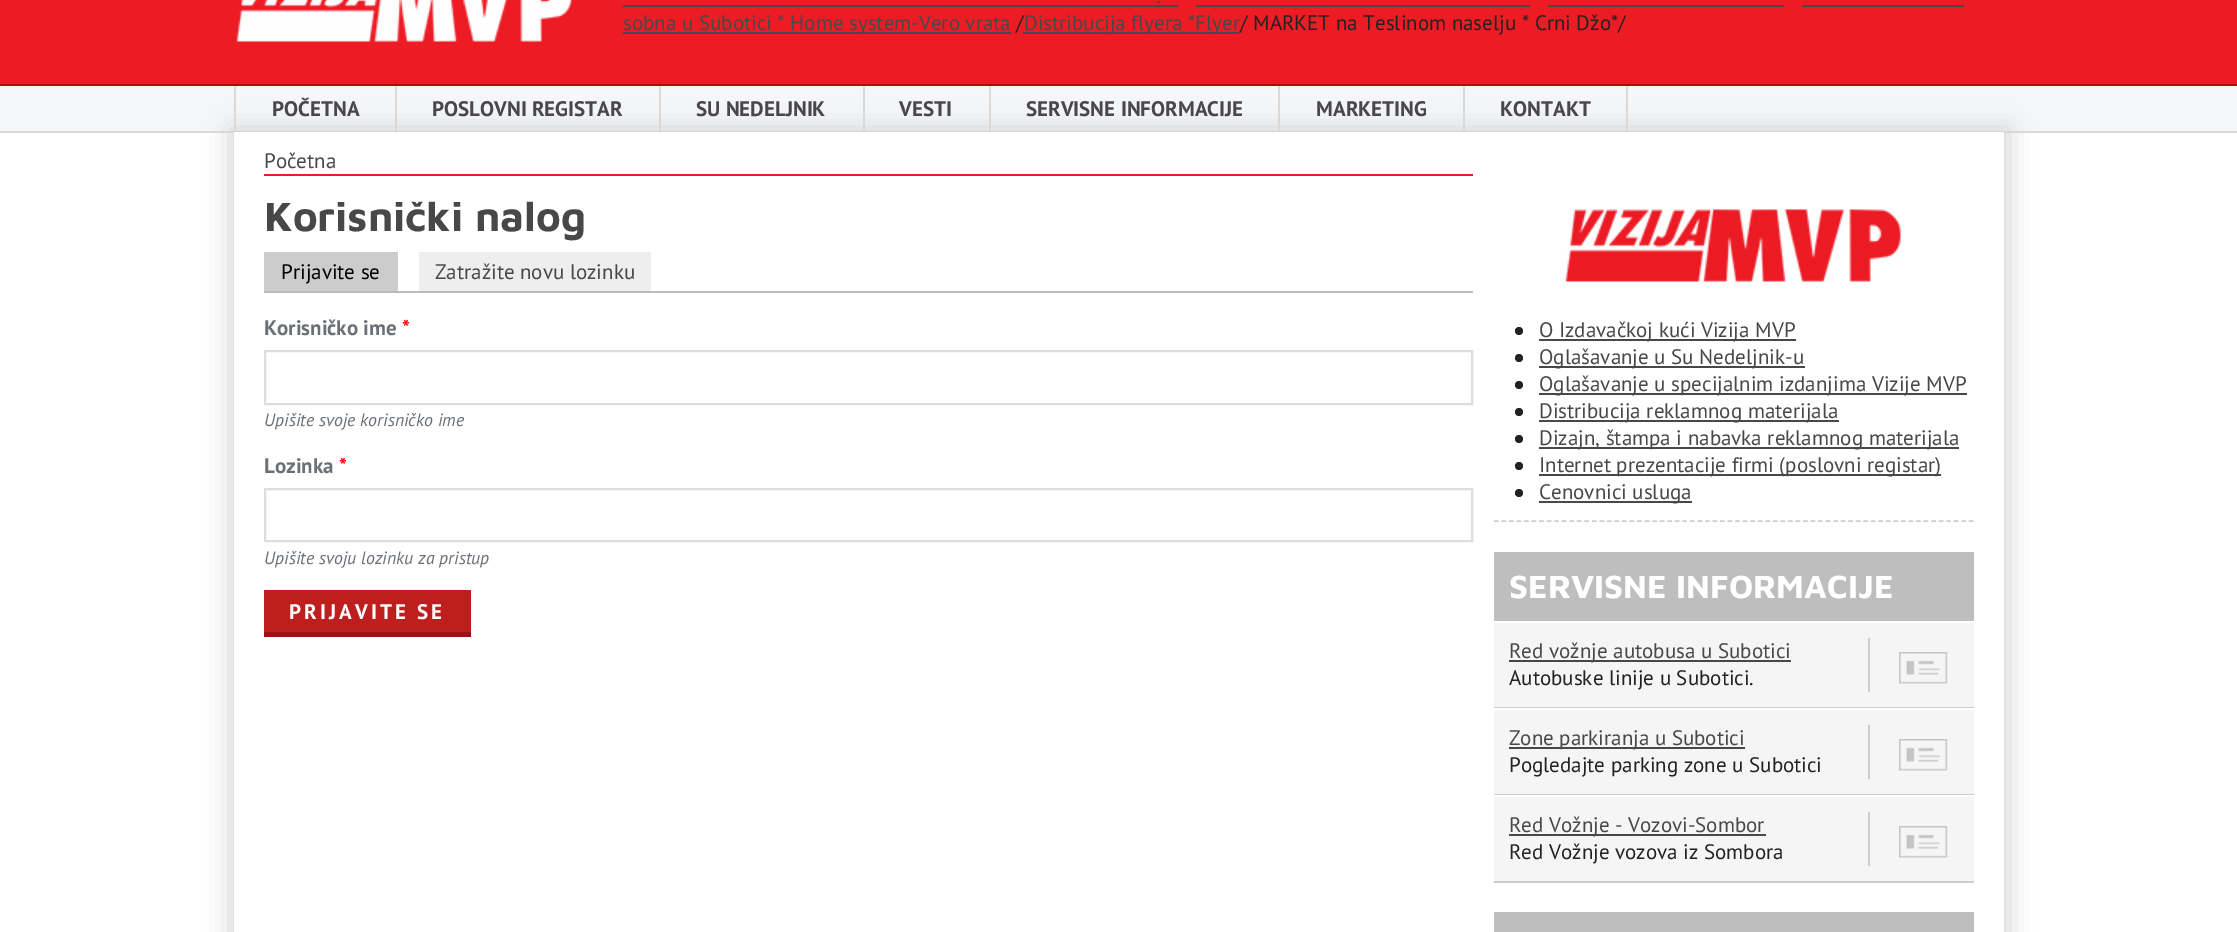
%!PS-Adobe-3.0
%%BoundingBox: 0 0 2237 932
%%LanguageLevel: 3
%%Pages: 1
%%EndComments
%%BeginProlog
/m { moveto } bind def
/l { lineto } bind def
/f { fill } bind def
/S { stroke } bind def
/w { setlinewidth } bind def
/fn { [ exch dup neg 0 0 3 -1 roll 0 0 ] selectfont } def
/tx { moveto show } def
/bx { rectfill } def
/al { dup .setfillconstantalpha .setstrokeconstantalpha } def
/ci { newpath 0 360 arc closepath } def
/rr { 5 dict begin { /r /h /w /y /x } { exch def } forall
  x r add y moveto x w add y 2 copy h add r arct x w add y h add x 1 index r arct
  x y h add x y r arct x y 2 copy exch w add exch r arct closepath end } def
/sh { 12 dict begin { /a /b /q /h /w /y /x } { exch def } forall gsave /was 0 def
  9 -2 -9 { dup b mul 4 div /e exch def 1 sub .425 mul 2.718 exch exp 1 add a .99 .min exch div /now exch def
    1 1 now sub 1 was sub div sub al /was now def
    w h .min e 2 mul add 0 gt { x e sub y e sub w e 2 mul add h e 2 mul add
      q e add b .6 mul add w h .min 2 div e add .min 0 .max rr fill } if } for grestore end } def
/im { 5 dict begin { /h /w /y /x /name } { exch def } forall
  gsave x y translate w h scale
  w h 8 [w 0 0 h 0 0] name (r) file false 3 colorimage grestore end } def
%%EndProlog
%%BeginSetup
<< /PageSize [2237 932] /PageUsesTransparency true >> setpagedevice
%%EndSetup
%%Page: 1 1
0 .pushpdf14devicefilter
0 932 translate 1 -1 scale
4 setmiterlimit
1 setgray
0 0 2237 932 bx
0.929 0.106 0.141 setrgbcolor
0 0 2237 84 bx
(image0.raw) 236 0 336 42 im
/PTSans-Regular 21 fn
0.282 0.282 0.29 setrgbcolor
(.) 1157 3 tx
623 5 555 2 bx
1196 5 334 2 bx
1548 5 236 2 bx
623 32 388 2 bx
(sobna u Subotici * Home system-Vero vrata) 623 30 tx
1802 5 162 2 bx
0.133 setgray
(/) 1016 30 tx
0.282 0.282 0.29 setrgbcolor
1023 32 216 2 bx
(Distribucija flyera *Flyer) 1024 30 tx
0.133 setgray
(/ MARKET na Teslinom naselju * Crni Džo*/) 1240 30 tx
0.961 0.965 0.973 setrgbcolor
0 86 2237 45 bx
0.71 0.043 0.043 setrgbcolor
0 84 2237 2 bx
0.851 setgray
0 131 2237 2 bx
0.827 setgray
230 128 1779 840 0 12 1 sh
0.851 setgray
234 86 2 45 bx
/PTSans-Bold 21 fn
0.282 0.282 0.29 setrgbcolor
(POČETNA) 272 116 tx
0.851 setgray
395 86 2 45 bx
0.282 0.282 0.29 setrgbcolor
(POSLOVNI REGISTAR) 432 116 tx
0.851 setgray
659 86 2 45 bx
0.282 0.282 0.29 setrgbcolor
(SU NEDELJNIK) 696 116 tx
0.851 setgray
863 86 2 45 bx
0.282 0.282 0.29 setrgbcolor
(VESTI) 899 116 tx
0.851 setgray
989 86 2 45 bx
0.282 0.282 0.29 setrgbcolor
(SERVISNE INFORMACIJE) 1026 116 tx
0.851 setgray
1278 86 2 45 bx
0.282 0.282 0.29 setrgbcolor
(MARKETING) 1316 116 tx
0.851 setgray
1626 86 2 45 bx
1463 86 2 45 bx
0.282 0.282 0.29 setrgbcolor
(KONTAKT) 1500 116 tx
1 setgray
234 132 1770 800 bx
0.922 0.11 0.133 setrgbcolor
264 174 1209 2 bx
/PTSans-Regular 21 fn
0.282 0.282 0.29 setrgbcolor
(Početna) 264 168 tx
/MavenPro-Bold 42 fn
(Korisnički nalog) 264 231 tx
0.733 setgray
264 291 1209 2 bx
0.8 setgray
264 252 134 39 bx
/PTSans-Regular 21 fn
0 setgray
(Prijavite se) 281 279 tx
0.933 setgray
419 252 232 39 bx
0.282 0.282 0.29 setrgbcolor
(Zatražite novu lozinku) 435 279 tx
/PTSans-Bold 21 fn
0.416 0.439 0.463 setrgbcolor
(Korisničko ime) 264 335 tx
1 0 0 setrgbcolor
(*) 402 335 tx
0.867 setgray
2 w
265 351 1207 53 rectstroke
/PTSans-Italic 17.8 fn
0.416 0.439 0.463 setrgbcolor
(Upišite svoje korisničko ime) 264 426 tx
/PTSans-Bold 21 fn
(Lozinkа) 264 473 tx
1 0 0 setrgbcolor
(*) 339 473 tx
0.867 setgray
265 489 1207 52 rectstroke
/PTSans-Italic 17.8 fn
0.416 0.439 0.463 setrgbcolor
(Upišite svoju lozinku za pristup) 264 564 tx
0.745 0.118 0.118 setrgbcolor
264 590 207 42 bx
0.576 0.078 0.075 setrgbcolor
264 632 207 5 bx
/PTSans-Bold 21 fn
1 setgray
289 619 m 3.1 0 (PRIJAVITE SE) ashow
(image1.raw) 1565 209 336 73 im
0.8 setgray
1.5 w
[4.5 3.04] 0 setdash
1494 521 m 1974 521 l S
0.133 setgray
1519 331 4 ci f
0.282 0.282 0.29 setrgbcolor
1539 339 257 2 bx
/PTSans-Regular 21 fn
(O Izdavačkoj kući Vizija MVP) 1539 337 tx
0.133 setgray
1519 358 4 ci f
0.282 0.282 0.29 setrgbcolor
1539 366 266 2 bx
(Oglašavanje u Su Nedeljnik-u) 1539 364 tx
0.133 setgray
1519 385 4 ci f
0.282 0.282 0.29 setrgbcolor
1539 393 428 2 bx
(Oglašavanje u specijalnim izdanjima Vizije MVP) 1539 391 tx
0.133 setgray
1519 412 4 ci f
0.282 0.282 0.29 setrgbcolor
1539 420 300 2 bx
(Distribucija reklamnog materijala) 1539 418 tx
0.133 setgray
1519 439 4 ci f
0.282 0.282 0.29 setrgbcolor
1539 447 420 2 bx
(Dizajn, štampa i nabavka reklamnog materijala) 1539 445 tx
0.133 setgray
1519 466 4 ci f
0.282 0.282 0.29 setrgbcolor
1539 474 402 2 bx
(Internet prezentacije firmi \(poslovni registar\)) 1539 472 tx
0.133 setgray
1519 493 4 ci f
0.282 0.282 0.29 setrgbcolor
1539 501 153 2 bx
(Cenovnici usluga) 1539 499 tx
0.745 setgray
1494 552 480 69 bx
/MavenPro-Bold 33 fn
1 setgray
(SERVISNE INFORMACIJE) 1509 598 tx
0.961 setgray
1494 623 480 84 bx
0.8 setgray
1494 707 480 1 bx
1868 638 2 54 bx
0.282 0.282 0.29 setrgbcolor
1509 660 282 2 bx
/PTSans-Regular 21 fn
(Red vožnje autobusa u Subotici) 1509 658 tx
0.133 setgray
(Autobuske linije u Subotici.) 1509 685 tx
(image2.raw) 1899 652 49 32 im
0.961 setgray
1494 710 480 84 bx
0.8 setgray
1494 794 480 1 bx
1868 725 2 54 bx
0.282 0.282 0.29 setrgbcolor
1509 747 236 2 bx
(Zone parkiranja u Subotici) 1509 745 tx
0.133 setgray
(Pogledajte parking zone u Subotici) 1509 772 tx
(image2.raw) 1899 739 49 32 im
0.961 setgray
1494 797 480 84 bx
0.8 setgray
1494 881 480 2 bx
1868 812 2 54 bx
0.282 0.282 0.29 setrgbcolor
1509 834 257 2 bx
(Red Vožnje - Vozovi-Sombor) 1509 832 tx
0.133 setgray
(Red Vožnje vozova iz Sombora) 1509 859 tx
(image2.raw) 1899 826 49 32 im
0.745 setgray
1494 912 480 20 bx
.poppdf14devicefilter showpage
%%EOF
